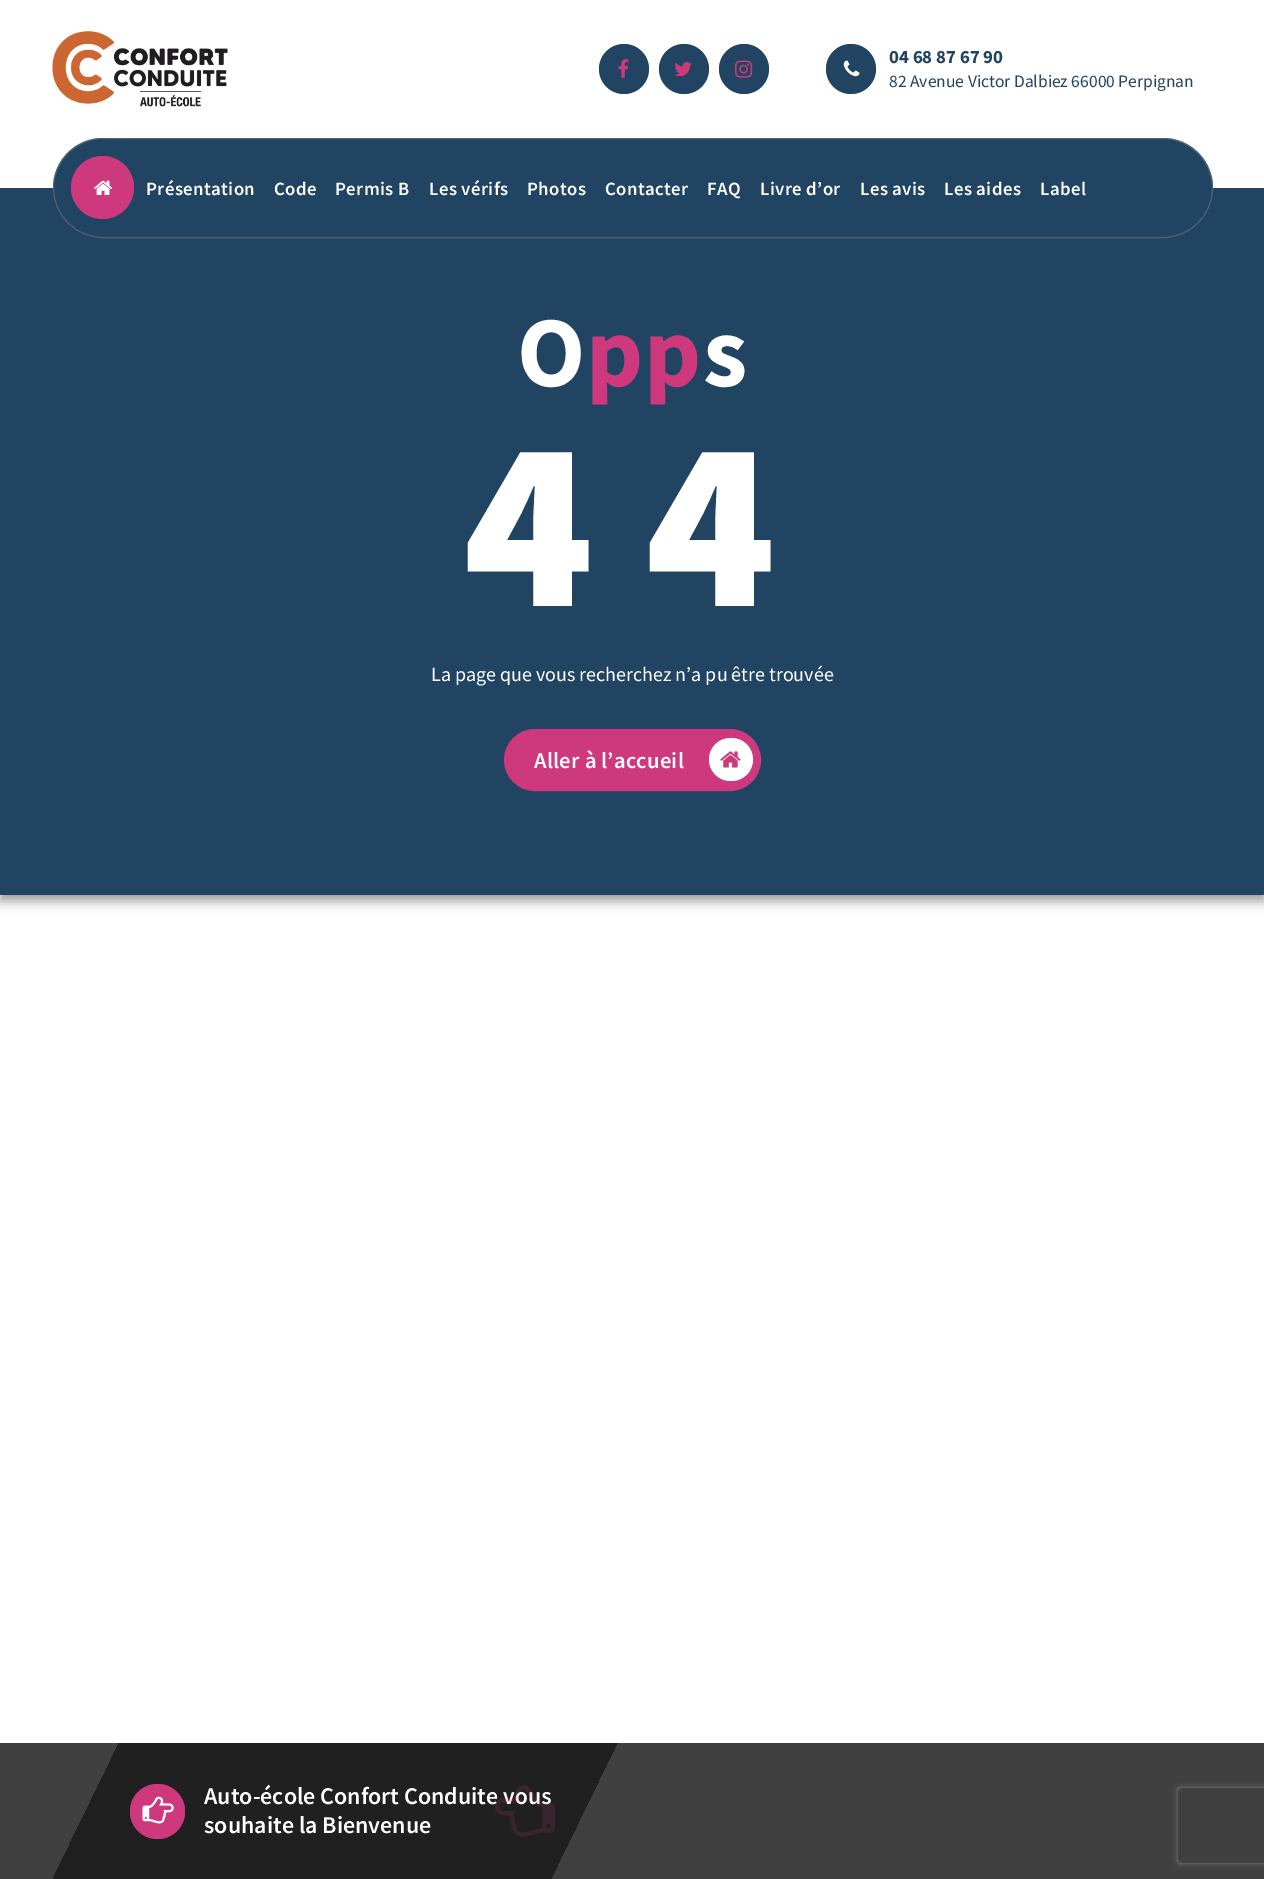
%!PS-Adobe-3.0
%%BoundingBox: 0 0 1264 1879
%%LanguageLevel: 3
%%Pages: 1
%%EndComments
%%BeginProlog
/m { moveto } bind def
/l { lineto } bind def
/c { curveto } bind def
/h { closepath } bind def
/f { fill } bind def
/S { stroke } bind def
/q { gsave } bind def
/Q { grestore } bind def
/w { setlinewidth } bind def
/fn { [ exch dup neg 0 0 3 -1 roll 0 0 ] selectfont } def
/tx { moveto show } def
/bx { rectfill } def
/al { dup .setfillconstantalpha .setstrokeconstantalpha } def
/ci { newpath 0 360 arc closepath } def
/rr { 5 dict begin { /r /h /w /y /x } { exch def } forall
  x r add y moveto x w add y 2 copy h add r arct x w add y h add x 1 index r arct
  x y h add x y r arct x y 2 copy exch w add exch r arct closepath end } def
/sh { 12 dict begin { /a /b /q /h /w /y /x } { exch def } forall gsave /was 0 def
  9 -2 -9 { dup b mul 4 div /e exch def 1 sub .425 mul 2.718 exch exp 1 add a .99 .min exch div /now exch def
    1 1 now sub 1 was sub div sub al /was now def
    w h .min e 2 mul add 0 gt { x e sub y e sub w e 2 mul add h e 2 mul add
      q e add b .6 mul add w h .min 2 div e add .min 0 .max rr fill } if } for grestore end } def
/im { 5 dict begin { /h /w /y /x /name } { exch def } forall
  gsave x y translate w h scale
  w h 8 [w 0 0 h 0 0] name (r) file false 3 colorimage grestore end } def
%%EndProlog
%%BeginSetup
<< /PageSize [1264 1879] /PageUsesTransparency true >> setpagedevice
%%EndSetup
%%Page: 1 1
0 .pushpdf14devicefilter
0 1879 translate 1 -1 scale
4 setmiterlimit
1 setgray
0 0 1264 1879 bx
0.2 setgray
0 194 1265 707 0 6 0.5 sh
1 setgray
0 182 1264 6 bx
(image0.raw) 52 31 176 76 im
0.129 0.267 0.384 setrgbcolor
624 69 25 ci f
(image1.raw) 618 59 11 19 im
684 69 25 ci f
(image2.raw) 674 62 18 15 im
744 69 25 ci f
(image3.raw) 735 60 18 18 im
851 69 25 ci f
(image4.raw) 843 60 17 17 im
/SourceSansPro-Bold 18.75 fn
(04 68 87 67 90) 889 63 tx
/SourceSansPro-Regular 17.5 fn
(82 Avenue Victor Dalbiez 66000 Perpignan) 889 87 tx
0 188 1264 707 bx
53 138 1160 100 50 rr f
0.6 al
0.424 0.459 0.49 setrgbcolor
53.5 138.5 1159 99 49.5 rr S
1 al
0.808 0.224 0.49 setrgbcolor
102.5 187.5 31.5 ci f
(image5.raw) 94 180 18 15 im
/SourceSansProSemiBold-SemiBold 18.75 fn
1 setgray
146 195 m 0.4 0 (Présentation) ashow
274 195 m 0.4 0 (Code) ashow
335 195 m 0.4 0 (Permis B) ashow
429 195 m 0.4 0 (Les vérifs) ashow
527 195 m 0.4 0 (Photos) ashow
605 195 m 0.4 0 (Contacter) ashow
707 195 m 0.4 0 (FAQ) ashow
760 195 m 0.4 0 (Livre d’or) ashow
860 195 m 0.4 0 (Les avis) ashow
944 195 m 0.4 0 (Les aides) ashow
1040 195 m 0.4 0 (Label) ashow
/SourceSansPro-Bold 100 fn
517 386 m 1 0 (O) ashow
0.808 0.224 0.49 setrgbcolor
586 386 m 1 0 (pp) ashow
1 setgray
703 386 m 1 0 (s) ashow
/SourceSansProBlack-Black 243 fn
463 606 m 26 0 (4) ashow
645 606 m 26 0 (4) ashow
/SourceSansPro-Regular 20 fn
(La page que vous recherchez n’a pu être trouvée) 431 681 tx
0.808 0.224 0.49 setrgbcolor
505.5 730.5 254 59 29.5 rr q f Q
3 w
S
/SourceSansProSemiBold-SemiBold 22.5 fn
1 setgray
534 768 m 0.25 0 (Aller à l’accueil) ashow
709 738 44 43 21.5 rr f
(image6.raw) 720 751 21 17 im
0.251 setgray
0 1743 1264 136 bx
q 53 1743 m 618 1743 l 618 1879 l 53 1879 l h clip newpath
<< /ShadingType 2 /ColorSpace /DeviceRGB /Coords [-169 1565 839 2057] /Extend [true true] /Function << /FunctionType 3 /Domain [0 1] /Functions [<< /FunctionType 2 /Domain [0 1] /C0 [0.251 0.251 0.251] /C1 [0.251 0.251 0.251] /N 1 >> << /FunctionType 2 /Domain [0 1] /C0 [0.125 0.125 0.125] /C1 [0.125 0.125 0.125] /N 1 >> << /FunctionType 2 /Domain [0 1] /C0 [0.251 0.251 0.251] /C1 [0.251 0.251 0.251] /N 1 >>] /Bounds [0.3 0.7] /Encode [0 1 0 1 0 1] >> >> shfill Q
0.808 0.224 0.49 setrgbcolor
157.5 1811.5 27.5 ci f
0.3 al
157.5 1811.5 27.5 ci f
157.5 1811.5 27.5 ci f
1 al
(image7.raw) 142 1796 32 28 im
/SourceSansProSemiBold-SemiBold 24 fn
1 setgray
(Auto-école Confort Conduite vous) 204 1804 tx
(souhaite la Bienvenue) 204 1833 tx
(image8.raw) 495 1785 60 52 im
q
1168 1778 m 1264 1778 l 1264 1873 l 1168 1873 l h 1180.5 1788 m 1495.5 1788 l 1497 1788 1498 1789 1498 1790.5 c 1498 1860.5 l 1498 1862 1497 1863 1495.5 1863 c 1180.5 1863 l 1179 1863 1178 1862 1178 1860.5 c 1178 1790.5 l 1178 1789 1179 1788 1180.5 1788 c h eoclip newpath
0.502 setgray
1178 1788 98 75 2.5 3 1 sh
Q
.poppdf14devicefilter showpage
%%EOF
